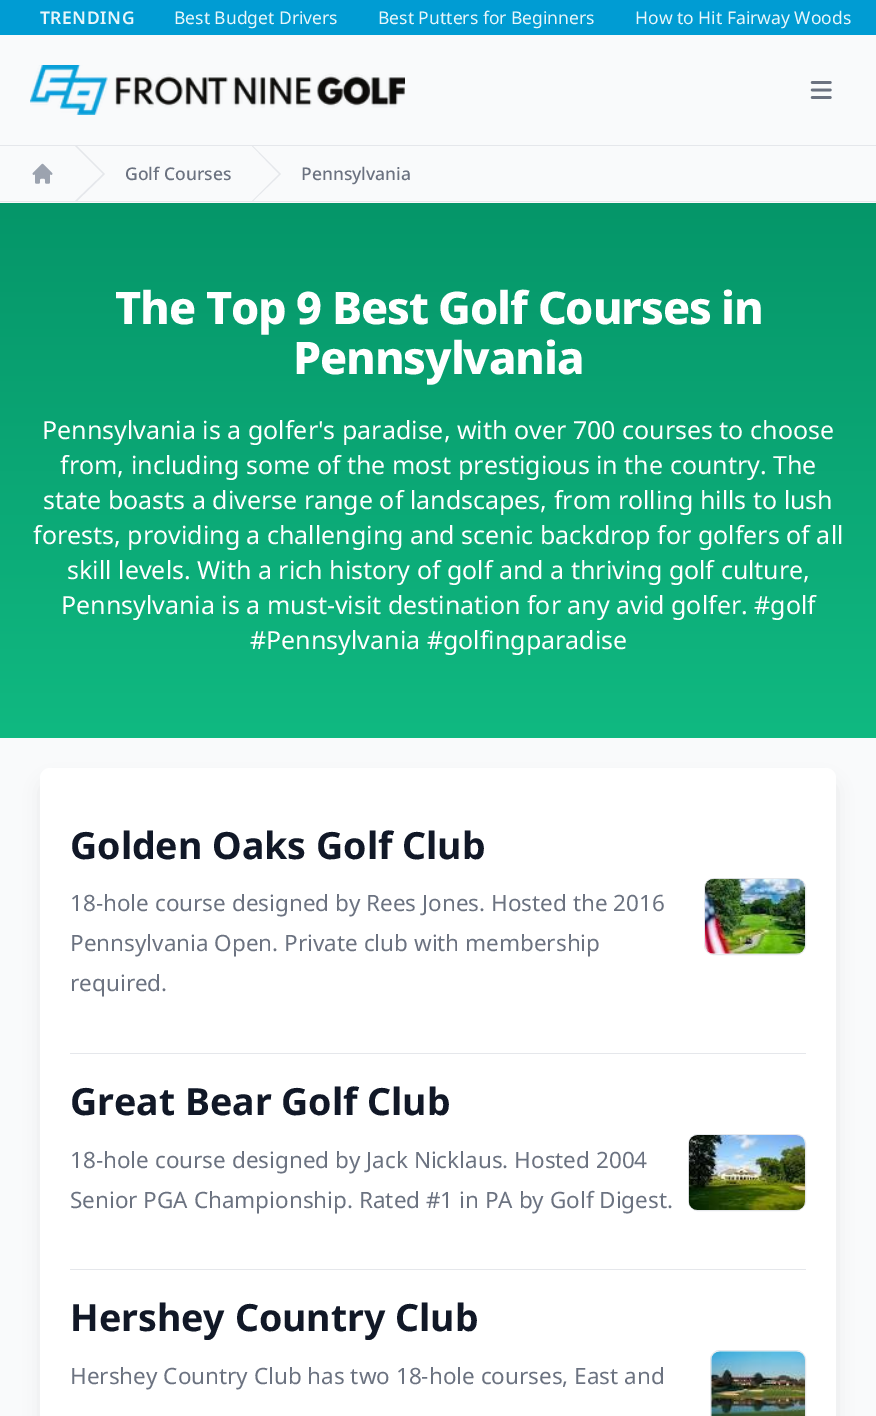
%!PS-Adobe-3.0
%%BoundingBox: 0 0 876 1416
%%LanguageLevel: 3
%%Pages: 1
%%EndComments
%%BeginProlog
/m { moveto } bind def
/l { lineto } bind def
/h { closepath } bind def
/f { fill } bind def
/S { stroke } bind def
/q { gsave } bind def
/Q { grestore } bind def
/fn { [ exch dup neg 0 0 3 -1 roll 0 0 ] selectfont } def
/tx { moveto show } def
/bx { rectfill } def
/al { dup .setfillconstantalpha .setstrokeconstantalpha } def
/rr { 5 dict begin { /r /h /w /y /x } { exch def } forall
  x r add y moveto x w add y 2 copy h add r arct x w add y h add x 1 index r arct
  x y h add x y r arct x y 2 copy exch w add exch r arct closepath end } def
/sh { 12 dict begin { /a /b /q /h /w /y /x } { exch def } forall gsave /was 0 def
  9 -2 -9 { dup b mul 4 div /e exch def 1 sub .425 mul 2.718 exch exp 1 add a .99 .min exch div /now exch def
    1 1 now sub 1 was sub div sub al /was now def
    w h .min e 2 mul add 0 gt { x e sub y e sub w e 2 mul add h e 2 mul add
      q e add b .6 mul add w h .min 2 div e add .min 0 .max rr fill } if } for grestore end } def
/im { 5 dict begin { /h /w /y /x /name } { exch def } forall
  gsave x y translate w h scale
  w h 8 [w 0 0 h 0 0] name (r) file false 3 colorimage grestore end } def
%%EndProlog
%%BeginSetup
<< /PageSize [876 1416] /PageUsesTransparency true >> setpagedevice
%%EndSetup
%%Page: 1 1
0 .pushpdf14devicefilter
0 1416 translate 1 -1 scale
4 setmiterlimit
0.976 0.98 0.984 setrgbcolor
0 0 876 1416 bx
0 0.612 0.827 setrgbcolor
0 0 876 35 bx
/NotoSans-SemiBold 17.5 fn
0.91 0.965 0.984 setrgbcolor
40 24 m 0.5 0 (TRENDING) ashow
/NotoSans-Regular 17.5 fn
(Best Budget Drivers) 174 24 tx
(Best Putters for Beginners) 378 24 tx
(How to Hit Fairway Woods) 635 24 tx
(image0.raw) 30 65 375 50 im
(image1.raw) 810 81 22 18 im
0.898 0.906 0.922 setrgbcolor
0 145 876 1 bx
0 201 876 1 bx
(image2.raw) 32 163 21 21 im
75 146 m 103 174 l 75 201 l 77 201 l 105 174 l 77 146 l h f
/NotoSans-Medium 17.5 fn
0.42 0.447 0.502 setrgbcolor
(Golf Courses) 125 180 tx
0.898 0.906 0.922 setrgbcolor
252 146 m 279 174 l 252 201 l 253 201 l 281 174 l 253 146 l h f
0.42 0.447 0.502 setrgbcolor
(Pennsylvania) 301 180 tx
q 0 203 m 876 203 l 876 738 l 0 738 l h clip newpath
<< /ShadingType 2 /ColorSpace /DeviceRGB /Coords [438 202 438 738] /Extend [true true] /Function << /FunctionType 2 /Domain [0 1] /C0 [0.02 0.588 0.412] /C1 [0.063 0.725 0.506] /N 1 >> >> shfill Q
/NotoSans-ExtraBold 45 fn
1 setgray
115 324 m -1.1 0 (The Top 9 Best Golf Courses in) ashow
293 374 m -1.1 0 (Pennsylvania) ashow
/NotoSans-Regular 25 fn
(Pennsylvania is a golfer's paradise, with over 700 courses to choose) 42 439 tx
(from, including some of the most prestigious in the country. The) 60 474 tx
(state boasts a diverse range of landscapes, from rolling hills to lush) 43 509 tx
(forests, providing a challenging and scenic backdrop for golfers of all) 33 544 tx
(skill levels. With a rich history of golf and a thriving golf culture,) 67 579 tx
(Pennsylvania is a must-visit destination for any avid golfer. #golf) 61 614 tx
(#Pennsylvania #golfingparadise) 250 649 tx
0 setgray
44 784 789 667 6 9.5 0.1 sh
1 setgray
40 768 796 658 10 rr f
/NotoSans-Bold 37.5 fn
0.067 0.094 0.153 setrgbcolor
(Golden Oaks Golf Club) 70 859 tx
/NotoSans-Regular 22.5 fn
0.42 0.447 0.502 setrgbcolor
(18-hole course designed by Rees Jones. Hosted the 2016) 70 911 tx
(Pennsylvania Open. Private club with membership) 70 951 tx
(required.) 70 991 tx
0.898 0.906 0.922 setrgbcolor
704.5 878.5 101 76 9.5 rr S
(image3.raw) 705 878 100 76 im
70 1053 736 1 bx
/NotoSans-Bold 37.5 fn
0.067 0.094 0.153 setrgbcolor
(Great Bear Golf Club) 70 1115 tx
/NotoSans-Regular 22.5 fn
0.42 0.447 0.502 setrgbcolor
(18-hole course designed by Jack Nicklaus. Hosted 2004) 70 1168 tx
(Senior PGA Championship. Rated #1 in PA by Golf Digest.) 70 1208 tx
0.898 0.906 0.922 setrgbcolor
688.5 1134.5 117 76 9.5 rr S
(image4.raw) 688 1135 117 75 im
70 1269 736 1 bx
/NotoSans-Bold 37.5 fn
0.067 0.094 0.153 setrgbcolor
(Hershey Country Club) 70 1331 tx
/NotoSans-Regular 22.5 fn
0.42 0.447 0.502 setrgbcolor
(Hershey Country Club has two 18-hole courses, East and) 70 1384 tx
0.898 0.906 0.922 setrgbcolor
710.5 1350.5 95 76 9.5 rr S
(image5.raw) 711 1351 94 65 im
.poppdf14devicefilter showpage
%%EOF
